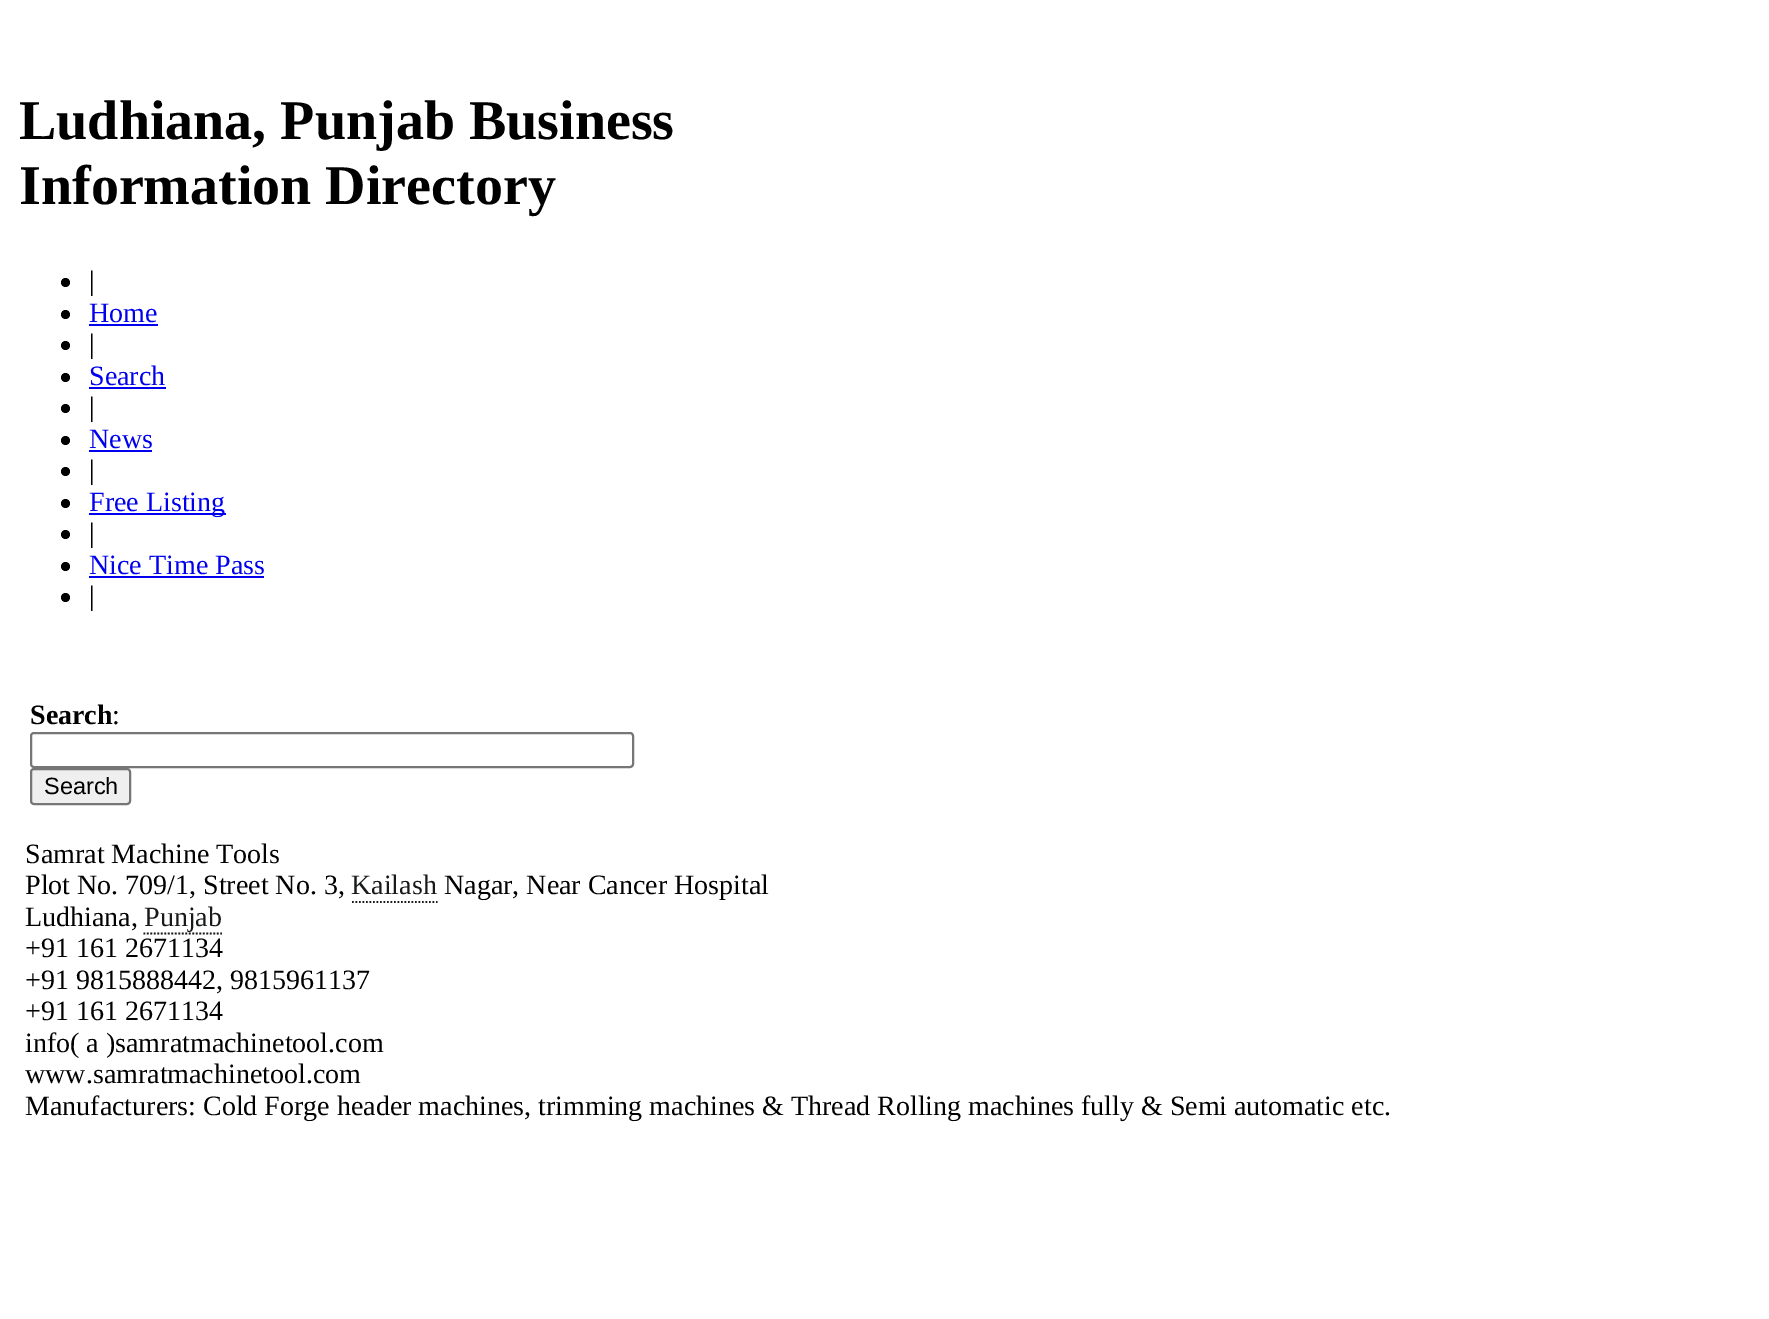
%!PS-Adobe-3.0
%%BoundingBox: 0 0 1769 1319
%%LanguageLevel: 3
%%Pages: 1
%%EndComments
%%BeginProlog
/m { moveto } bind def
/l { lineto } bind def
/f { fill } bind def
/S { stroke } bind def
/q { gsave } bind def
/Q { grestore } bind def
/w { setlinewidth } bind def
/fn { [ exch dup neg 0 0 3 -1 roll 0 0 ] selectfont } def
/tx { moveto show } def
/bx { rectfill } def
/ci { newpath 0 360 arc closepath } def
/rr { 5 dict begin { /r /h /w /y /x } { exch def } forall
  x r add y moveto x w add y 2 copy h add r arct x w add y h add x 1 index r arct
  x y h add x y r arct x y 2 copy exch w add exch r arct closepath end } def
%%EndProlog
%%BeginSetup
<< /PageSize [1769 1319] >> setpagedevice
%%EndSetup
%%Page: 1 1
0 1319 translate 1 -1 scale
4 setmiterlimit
1 setgray
0 0 1769 1319 bx
/LiberationSerif-Bold 56 fn
0 setgray
(Ludhiana, Punjab Business) 19 139 tx
(Information Directory) 19 204 tx
65.5 282.5 4.5 ci f
/LiberationSerif-Regular 28 fn
(|) 89 290 tx
65.5 314.5 4.5 ci f
0 0 0.933 setrgbcolor
(Home) 89 322 tx
89 324 69 2 bx
0 setgray
65.5 345.5 4.5 ci f
(|) 89 353 tx
65.5 377.5 4.5 ci f
0 0 0.933 setrgbcolor
(Search) 89 385 tx
89 387 77 2 bx
0 setgray
65.5 408.5 4.5 ci f
(|) 89 416 tx
65.5 440.5 4.5 ci f
0 0 0.933 setrgbcolor
(News) 89 448 tx
89 450 63 2 bx
0 setgray
65.5 471.5 4.5 ci f
(|) 89 479 tx
65.5 503.5 4.5 ci f
0 0 0.933 setrgbcolor
89 513 137 2 bx
(Free Listing) 89 511 tx
0 setgray
65.5 534.5 4.5 ci f
(|) 89 542 tx
65.5 566.5 4.5 ci f
0 0 0.933 setrgbcolor
(Nice Time Pass) 89 574 tx
89 576 175 2 bx
0 setgray
65.5 597.5 4.5 ci f
(|) 89 605 tx
/LiberationSerif-Bold 28 fn
(Search) 30 724 tx
/LiberationSerif-Regular 28 fn
(:) 112 724 tx
0.463 setgray
2 w
31 733 602 34 3 rr S
0.937 setgray
31 769 99 35 3 rr q f Q
0.463 setgray
S
/LiberationSans-Regular 23.5 fn
0 setgray
(Search) 44 794 tx
/LiberationSerif-Regular 28 fn
(Samrat Machine Tools) 25 863 tx
(Plot No. 709/1, Street No. 3,) 25 894 tx
0.094 0.098 0.102 setrgbcolor
(Kailash) 351 894 tx
1.8 w
[1.75 1.75] 0 setdash
352 902 m 437.5 902 l S
0 setgray
(Nagar, Near Cancer Hospital) 444 894 tx
(Ludhiana,) 25 926 tx
0.094 0.098 0.102 setrgbcolor
(Punjab) 144 926 tx
143.5 933.5 m 222 933.5 l S
0 setgray
(+91 161 2671134) 25 957 tx
(+91 9815888442, 9815961137) 25 989 tx
(+91 161 2671134) 25 1020 tx
(info\( a \)samratmachinetool.com) 25 1052 tx
(www.samratmachinetool.com) 25 1083 tx
(Manufacturers: Cold Forge header machines, trimming machines & Thread Rolling machines fully & Semi automatic etc.) 25 1115 tx
showpage
%%EOF
